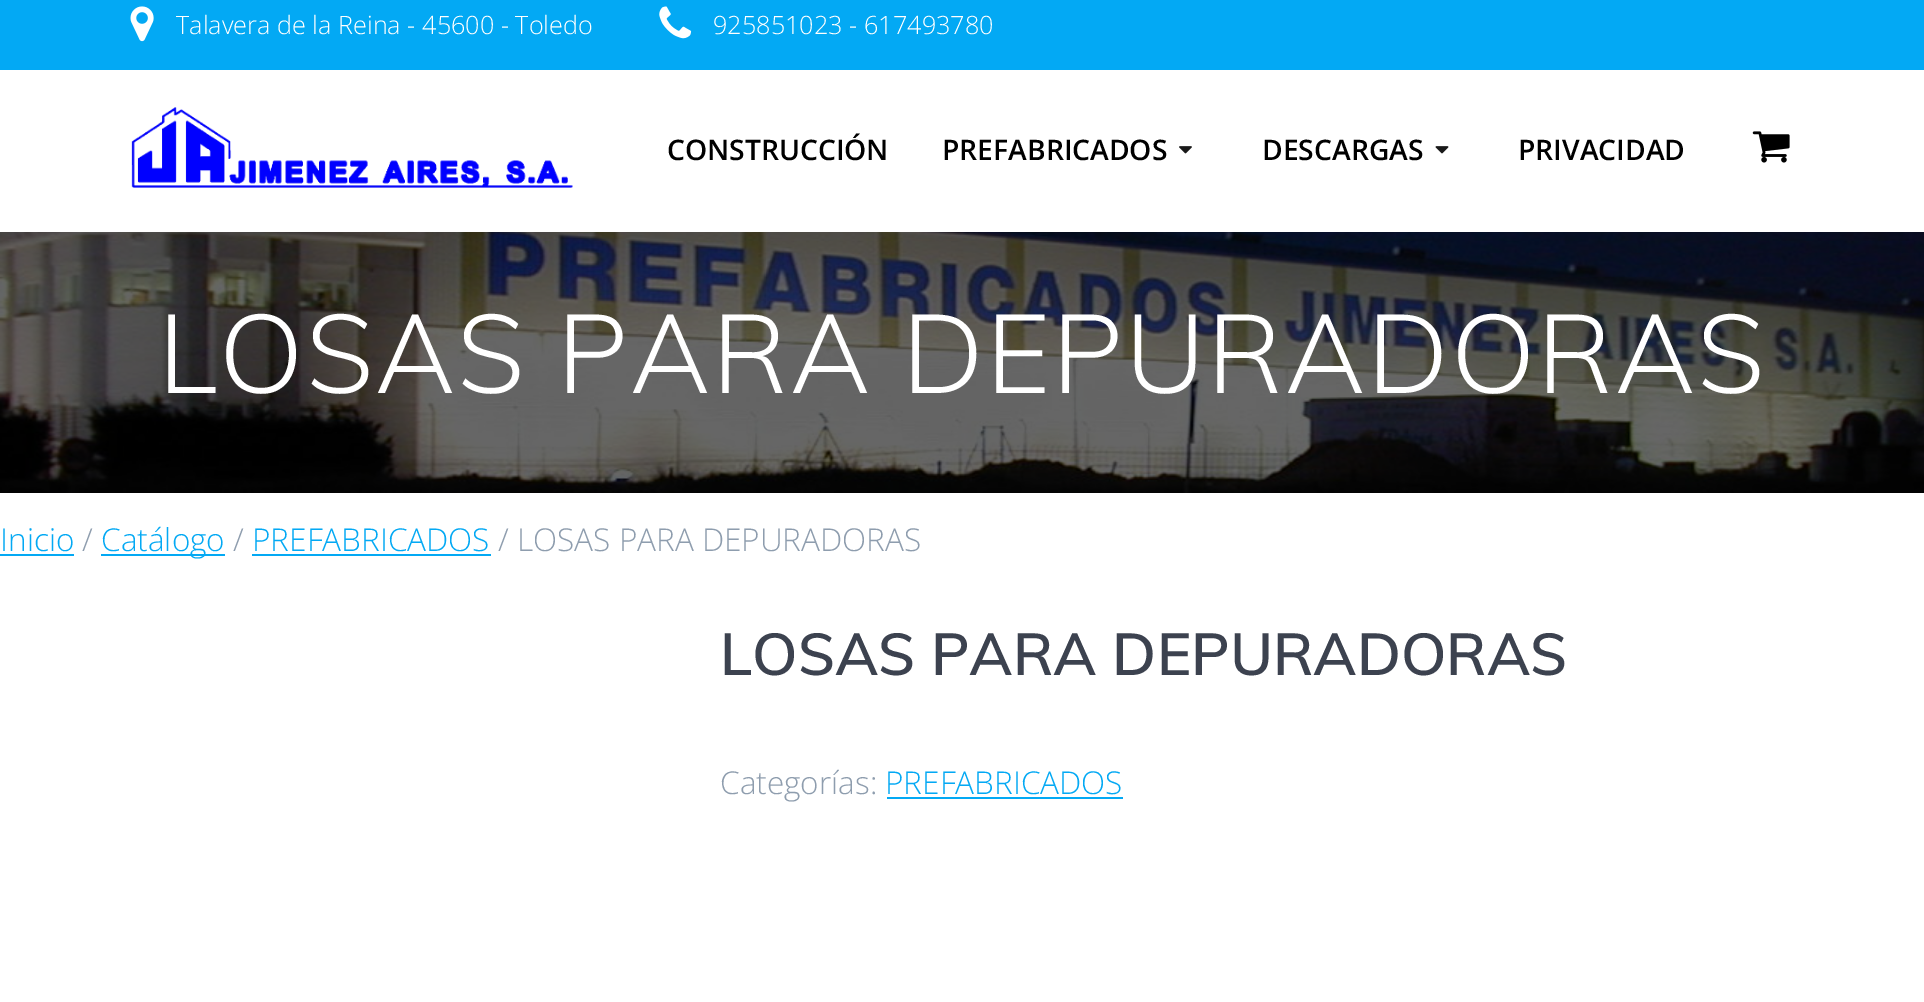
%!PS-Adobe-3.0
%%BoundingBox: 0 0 1924 1002
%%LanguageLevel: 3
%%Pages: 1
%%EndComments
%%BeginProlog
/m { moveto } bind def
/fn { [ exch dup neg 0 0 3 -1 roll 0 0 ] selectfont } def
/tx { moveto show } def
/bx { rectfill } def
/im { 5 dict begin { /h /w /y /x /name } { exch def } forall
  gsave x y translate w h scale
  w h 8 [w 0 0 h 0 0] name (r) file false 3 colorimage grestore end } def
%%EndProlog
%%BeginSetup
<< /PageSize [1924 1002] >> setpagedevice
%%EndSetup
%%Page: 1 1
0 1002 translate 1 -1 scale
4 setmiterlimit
1 setgray
0 0 1924 1002 bx
0.012 0.663 0.957 setrgbcolor
0 0 1924 70 bx
(image0.raw) 130 6 24 36 im
/OpenSans-Light 25.25 fn
1 setgray
(Talavera de la Reina - 45600 - Toledo) 176 34 tx
(image1.raw) 659 6 33 33 im
(925851023 - 617493780) 713 34 tx
(image2.raw) 131 107 442 81 im
/OpenSans-SemiBold 28.25 fn
0 setgray
(CONSTRUCCIÓN) 667 160 tx
(PREFABRICADOS) 942 160 tx
(image3.raw) 1179 146 13 8 im
(DESCARGAS) 1262 160 tx
(image4.raw) 1435 146 14 8 im
(PRIVACIDAD) 1518 160 tx
(image5.raw) 1752 131 38 32 im
(image6.raw) 0 232 1924 261 im
/Muli-Light 110.25 fn
1 setgray
158 393 m 2 0 (LOSAS PARA DEPURADORAS) ashow
/OpenSans-Light 31.5 fn
0.012 0.663 0.957 setrgbcolor
(Inicio) 0 551 tx
0 554 74 2 bx
0.557 0.616 0.682 setrgbcolor
(/) 82 551 tx
0.012 0.663 0.957 setrgbcolor
101 554 124 2 bx
(Catálogo) 101 551 tx
0.557 0.616 0.682 setrgbcolor
(/) 233 551 tx
0.012 0.663 0.957 setrgbcolor
(PREFABRICADOS) 252 551 tx
252 554 239 2 bx
0.557 0.616 0.682 setrgbcolor
(/ LOSAS PARA DEPURADORAS) 498 551 tx
/Muli-SemiBold 58.5 fn
0.235 0.259 0.31 setrgbcolor
(LOSAS PARA DEPURADORAS) 720 675 tx
/OpenSans-Light 31.5 fn
0.557 0.616 0.682 setrgbcolor
(Categorías:) 720 794 tx
0.012 0.663 0.957 setrgbcolor
(PREFABRICADOS) 885 794 tx
887 797 236 2 bx
showpage
%%EOF
